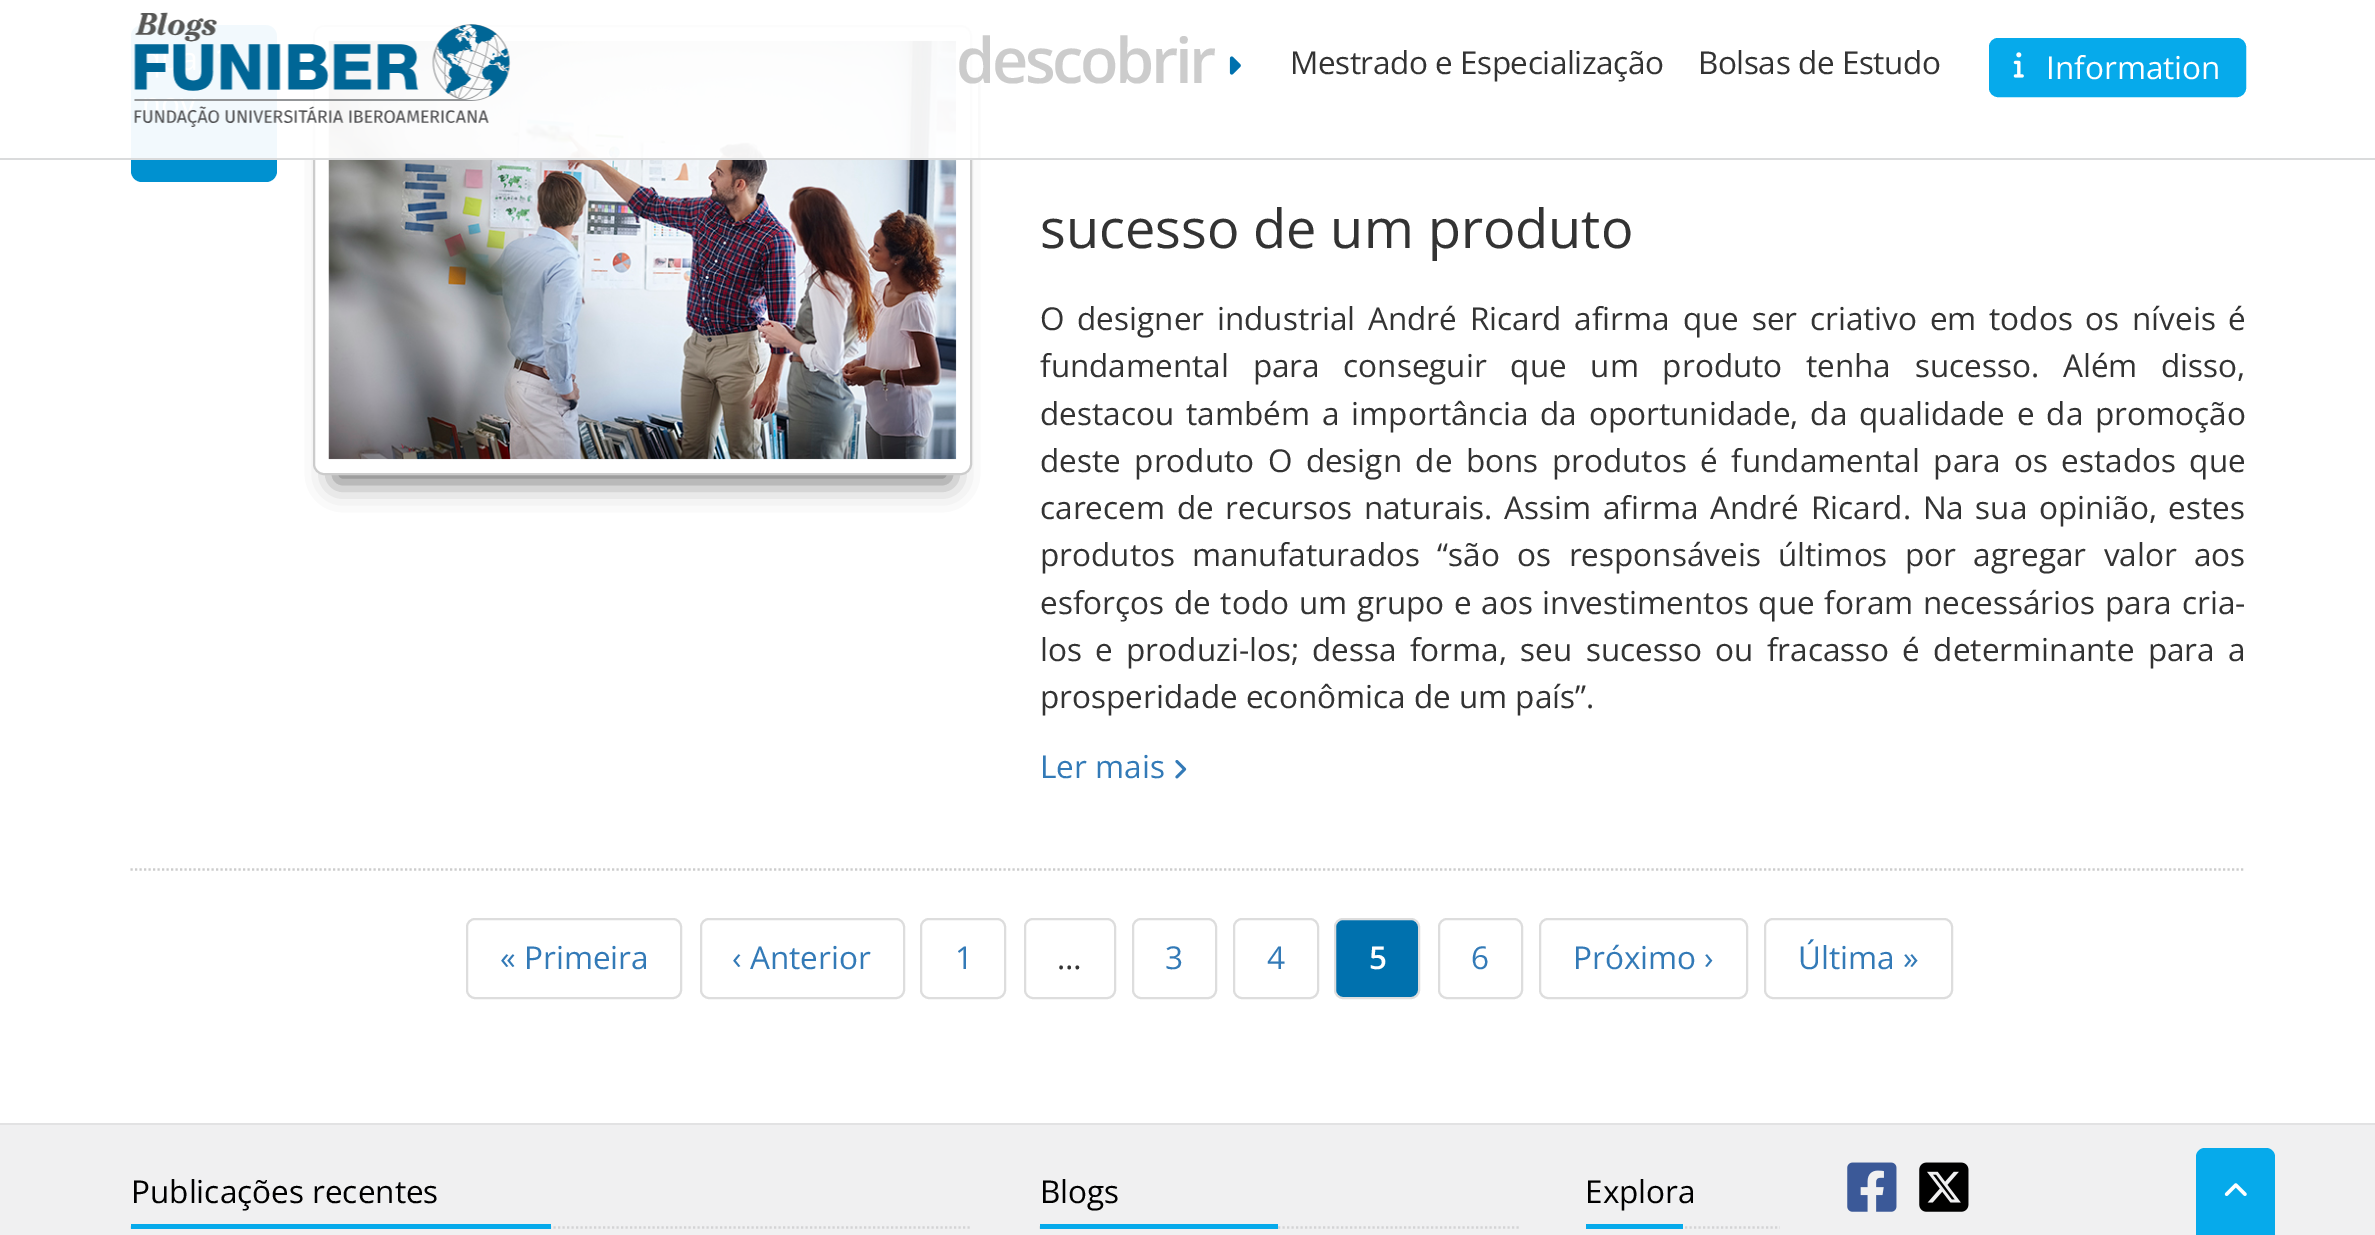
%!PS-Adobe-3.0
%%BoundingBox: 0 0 2375 1235
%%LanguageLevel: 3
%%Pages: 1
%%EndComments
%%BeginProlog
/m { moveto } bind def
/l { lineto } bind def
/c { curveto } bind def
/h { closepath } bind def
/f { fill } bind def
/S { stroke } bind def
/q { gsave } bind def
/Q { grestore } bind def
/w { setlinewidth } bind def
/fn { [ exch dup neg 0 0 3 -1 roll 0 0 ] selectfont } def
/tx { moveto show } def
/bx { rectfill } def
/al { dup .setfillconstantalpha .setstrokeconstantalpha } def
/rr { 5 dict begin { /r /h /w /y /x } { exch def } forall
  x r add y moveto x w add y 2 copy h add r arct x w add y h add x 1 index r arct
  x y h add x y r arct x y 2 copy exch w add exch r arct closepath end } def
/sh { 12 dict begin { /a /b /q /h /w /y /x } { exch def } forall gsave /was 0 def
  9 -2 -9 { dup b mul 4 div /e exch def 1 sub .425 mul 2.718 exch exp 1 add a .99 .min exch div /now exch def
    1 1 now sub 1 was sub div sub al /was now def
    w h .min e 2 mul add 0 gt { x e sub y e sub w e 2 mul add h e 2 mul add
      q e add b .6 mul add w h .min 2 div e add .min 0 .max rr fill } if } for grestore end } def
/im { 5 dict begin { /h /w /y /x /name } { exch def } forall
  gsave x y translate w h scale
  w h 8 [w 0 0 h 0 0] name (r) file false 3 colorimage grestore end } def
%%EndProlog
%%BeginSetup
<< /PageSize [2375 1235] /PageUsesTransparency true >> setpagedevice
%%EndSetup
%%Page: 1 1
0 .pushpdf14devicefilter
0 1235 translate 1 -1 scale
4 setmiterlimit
1 setgray
0 0 2375 1235 bx
0 0.569 0.816 setrgbcolor
131 25 146 157 11 rr f
q
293 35 m 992 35 l 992 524 l 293 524 l h 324 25 m 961 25 l 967 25 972 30 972 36 c 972 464 l 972 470 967 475 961 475 c 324 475 l 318 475 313 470 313 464 c 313 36 l 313 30 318 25 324 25 c h eoclip newpath
0 setgray
335 77 615 405 0 13.5 0.55 sh
Q
0.8 setgray
2 w
314 26 657 448 10 rr S
(image3.raw) 328 40 629 420 im
0.95 al
1 setgray
131 25 847 133 bx
1 al
0.855 0.859 0.863 setrgbcolor
0 158 2375 2 bx
(image0.raw) 134 12 377 115 im
/OpenSans-SemiBold 63 fn
0.8 setgray
956 83 m -3.4 0 (descobrir) ashow
(image1.raw) 1229 56 12 19 im
/OpenSans-Regular 31.5 fn
0.2 setgray
1290 74 m -0.45 0 (Mestrado e Especialização) ashow
1698 74 m -0.45 0 (Bolsas de Estudo) ashow
0.024 0.667 0.922 setrgbcolor
1990 39 255 57 8 rr q f Q
S
(image2.raw) 2013 52 11 26 im
1 setgray
(Information) 2046 79 tx
0.8 setgray
2.2 w
[2.25 2.25] 0 setdash
130.5 869.5 m 2245.5 869.5 l S
/OpenSans-Regular 54 fn
0.2 setgray
(sucesso de um produto) 1040 248 tx
/OpenSans-Regular 31.5 fn
1040 330 m 4.5 0 32 (O designer industrial André Ricard afirma que ser criativo em todos os níveis é) widthshow
1040 377 m 15.5 0 32 (fundamental para conseguir que um produto tenha sucesso. Além disso,) widthshow
1040 425 m 3.75 0 32 (destacou também a importância da oportunidade, da qualidade e da promoção) widthshow
1040 472 m 5.25 0 32 (deste produto O design de bons produtos é fundamental para os estados que) widthshow
1040 519 m 3.4 0 32 (carecem de recursos naturais. Assim afirma André Ricard. Na sua opinião, estes) widthshow
1040 566 m 9.25 0 32 (produtos manufaturados “são os responsáveis últimos por agregar valor aos) widthshow
1040 614 m 1.5 0 32 (esforços de todo um grupo e aos investimentos que foram necessários para cria-) widthshow
1040 661 m 5.1 0 32 (los e produzi-los; dessa forma, seu sucesso ou fracasso é determinante para a) widthshow
(prosperidade econômica de um país”.) 1040 708 tx
0.2 0.478 0.718 setrgbcolor
(Ler mais) 1040 778 tx
(image4.raw) 1175 760 12 19 im
0.867 setgray
2 w
[] 0 setdash
467 919 214 79 8 rr S
0.2 0.478 0.718 setrgbcolor
(« Primeira) 500 969 tx
0.867 setgray
701 919 203 79 8 rr S
0.2 0.478 0.718 setrgbcolor
(‹ Anterior) 732 969 tx
0.867 setgray
921 919 84 79 8 rr S
0.2 0.478 0.718 setrgbcolor
(1) 955 969 tx
0.867 setgray
1025 919 90 79 8 rr S
0.2 setgray
(…) 1057 969 tx
0.867 setgray
1133 919 83 79 8 rr S
0.2 0.478 0.718 setrgbcolor
(3) 1165 969 tx
0.867 setgray
1234 919 84 79 8 rr S
0.2 0.478 0.718 setrgbcolor
(4) 1267 969 tx
0 0.443 0.682 setrgbcolor
1335 919 84 79 8 rr q f Q
0.867 setgray
S
/OpenSans-SemiBold 31.5 fn
1 setgray
(5) 1369 969 tx
0.867 setgray
1439 919 83 79 8 rr S
/OpenSans-Regular 31.5 fn
0.2 0.478 0.718 setrgbcolor
(6) 1471 969 tx
0.867 setgray
1540 919 207 79 8 rr S
0.2 0.478 0.718 setrgbcolor
(Próximo ›) 1573 969 tx
0.867 setgray
1765 919 187 79 8 rr S
0.2 0.478 0.718 setrgbcolor
(Última ») 1798 969 tx
0.941 0.941 0.945 setrgbcolor
0 1125 2375 110 bx
0.024 0.667 0.922 setrgbcolor
2205 1148 m 2266 1148 l 2271 1148 2275 1152 2275 1157 c 2275 1235 l 2196 1235 l 2196 1157 l 2196 1152 2200 1148 2205 1148 c h f
(image5.raw) 2224 1183 23 13 im
0.886 0.886 0.89 setrgbcolor
0 1123 2375 2 bx
0.827 0.827 0.835 setrgbcolor
2.2 w
[2.25 2.25] 0 setdash
130.5 1227.5 m 972 1227.5 l S
0 setgray
(Publicações recentes) 131 1203 tx
0.024 0.667 0.922 setrgbcolor
131 1224 420 5 bx
0.827 0.827 0.835 setrgbcolor
1039.5 1227.5 m 1519 1227.5 l S
0 setgray
(Blogs) 1040 1203 tx
0.024 0.667 0.922 setrgbcolor
1040 1224 238 5 bx
0.827 0.827 0.835 setrgbcolor
1586 1227.5 m 1780 1227.5 l S
0 setgray
(Explora) 1585 1203 tx
0.024 0.667 0.922 setrgbcolor
1586 1224 97 5 bx
(image6.raw) 1847 1162 50 50 im
(image7.raw) 1919 1162 50 50 im
.poppdf14devicefilter showpage
%%EOF
